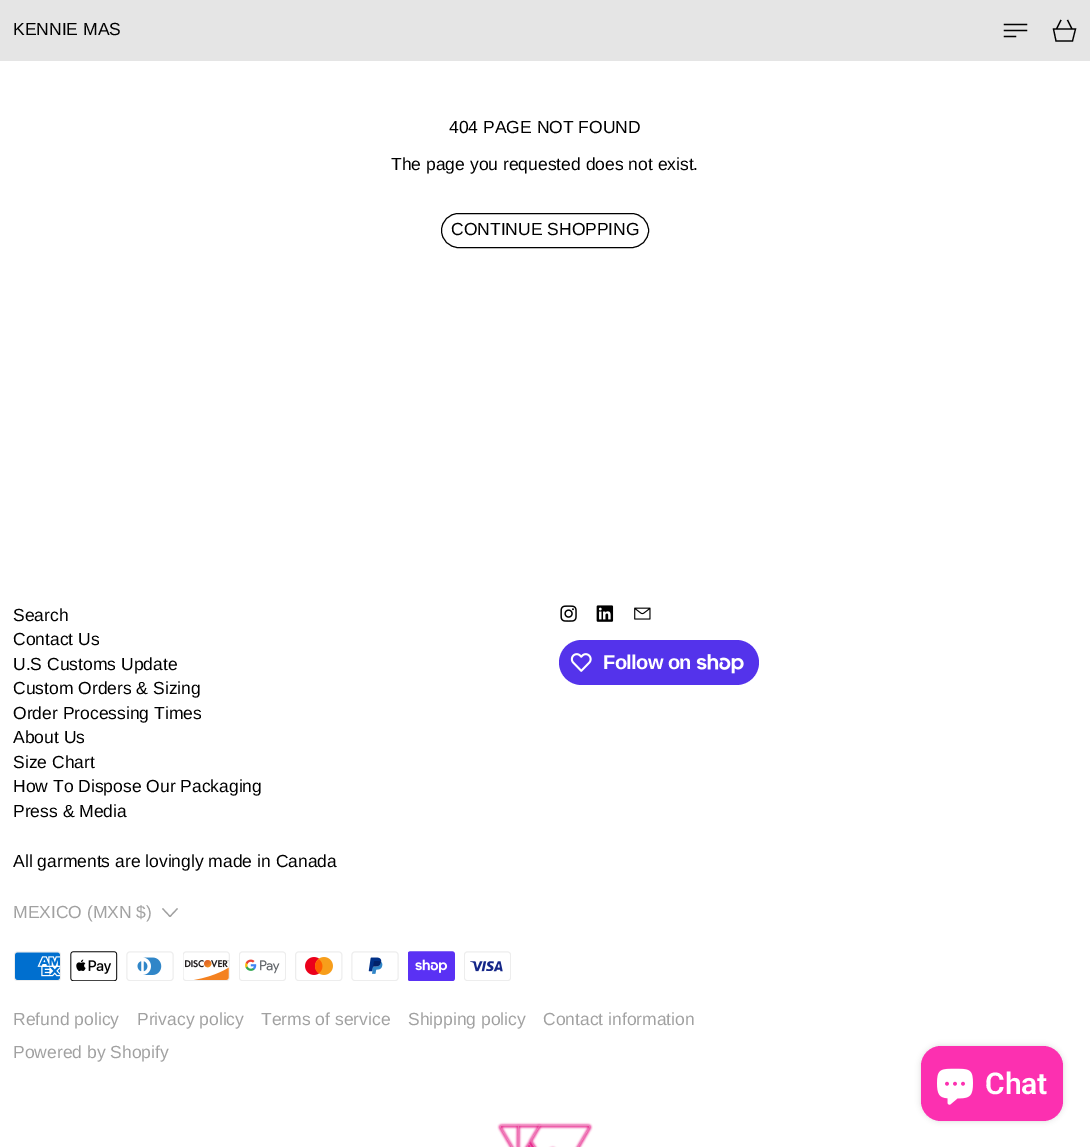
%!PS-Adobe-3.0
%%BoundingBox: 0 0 1090 1147
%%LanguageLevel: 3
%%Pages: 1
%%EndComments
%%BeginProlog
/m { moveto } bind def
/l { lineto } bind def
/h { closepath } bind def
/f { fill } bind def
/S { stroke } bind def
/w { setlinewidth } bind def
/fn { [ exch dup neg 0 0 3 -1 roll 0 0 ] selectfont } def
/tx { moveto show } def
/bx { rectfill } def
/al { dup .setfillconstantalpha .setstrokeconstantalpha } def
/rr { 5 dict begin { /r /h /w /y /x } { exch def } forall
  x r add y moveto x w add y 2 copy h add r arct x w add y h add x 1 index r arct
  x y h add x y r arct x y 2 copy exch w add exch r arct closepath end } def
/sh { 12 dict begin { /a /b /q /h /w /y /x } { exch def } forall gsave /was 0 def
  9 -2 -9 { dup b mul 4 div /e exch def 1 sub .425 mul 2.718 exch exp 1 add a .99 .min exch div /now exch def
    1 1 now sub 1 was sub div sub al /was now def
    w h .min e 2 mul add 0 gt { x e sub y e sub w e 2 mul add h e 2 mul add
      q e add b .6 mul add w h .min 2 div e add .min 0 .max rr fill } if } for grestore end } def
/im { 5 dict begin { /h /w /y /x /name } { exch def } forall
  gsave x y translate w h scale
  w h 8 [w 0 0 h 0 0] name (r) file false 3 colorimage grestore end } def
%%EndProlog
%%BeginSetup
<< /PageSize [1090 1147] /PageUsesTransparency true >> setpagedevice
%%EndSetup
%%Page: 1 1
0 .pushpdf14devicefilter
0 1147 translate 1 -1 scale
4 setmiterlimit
1 setgray
0 0 1090 1147 bx
0.898 setgray
0 0 1090 61 bx
/LiberationSans-Regular 17.5 fn
0 setgray
(KENNIE MAS) 13 35 tx
1.2 w
2 setlinecap
1004.5 24.5 m 1026.5 24.5 l 1004.5 36.5 m 1015.5 36.5 l 1004.5 30.5 m 1026.5 30.5 l S
0 setlinecap
1056 41 m 1053.5 29 l 1075.5 29 l 1072.5 41 l h 1056.5 29 m 1061 20 l 1072 29 m 1067.5 20 l S
(404 PAGE NOT FOUND) 449 133 tx
(The page you requested does not exist.) 391 170 tx
1 w
441.5 213.5 207 34 17 rr S
(CONTINUE SHOPPING) 451 235 tx
(Search) 13 621 tx
(Contact Us) 13 645 tx
(U.S Customs Update) 13 670 tx
(Custom Orders & Sizing) 13 694 tx
(Order Processing Times) 13 719 tx
(About Us) 13 743 tx
(Size Chart) 13 768 tx
(How To Dispose Our Packaging) 13 792 tx
(Press & Media) 13 817 tx
(image0.raw) 560 605 17 17 im
(image1.raw) 596 605 18 17 im
(image2.raw) 634 607 17 13 im
0.329 0.2 0.922 setrgbcolor
559 640 200 45 22.5 rr f
(image3.raw) 570 653 22 19 im
/LiberationSans-Bold 20 fn
1 setgray
603 669 m -0.6 0 (Follow on) ashow
(image4.raw) 696 654 48 20 im
/LiberationSans-Regular 17.5 fn
0 setgray
(All garments are lovingly made in Canada) 13 867 tx
0.631 setgray
(MEXICO \(MXN $\)) 13 918 tx
1.2 w
1 setlinejoin
162.5 908.5 m 170 916.5 l 177.5 908.5 l S
(image5.raw) 14 951 47 30 im
(image6.raw) 70 951 48 30 im
(image7.raw) 126 951 48 30 im
(image8.raw) 183 951 47 30 im
(image9.raw) 239 951 47 30 im
(image10.raw) 295 951 48 30 im
(image11.raw) 351 951 48 30 im
(image12.raw) 408 951 47 30 im
(image13.raw) 464 951 47 30 im
(Refund policy) 13 1025 tx
(Privacy policy) 137 1025 tx
(Terms of service) 261 1025 tx
(Shipping policy) 408 1025 tx
(Contact information) 543 1025 tx
(Powered by Shopify) 13 1058 tx
(image14.raw) 497 1122 96 25 im
0 setgray
921 1046 142 75 20 3 0.15 sh
0.988 0.188 0.69 setrgbcolor
921 1046 142 75 20 rr f
(image15.raw) 937 1068 36 37 im
/Roboto-SemiBold 30 fn
1 setgray
(Chat) 985 1094 tx
.poppdf14devicefilter showpage
%%EOF
